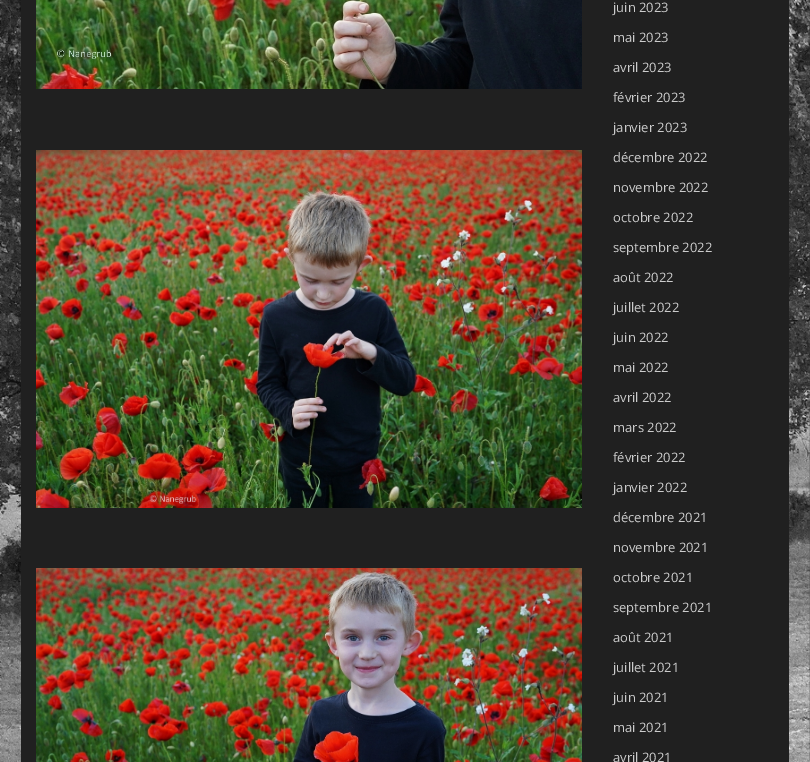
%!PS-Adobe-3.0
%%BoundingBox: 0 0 810 762
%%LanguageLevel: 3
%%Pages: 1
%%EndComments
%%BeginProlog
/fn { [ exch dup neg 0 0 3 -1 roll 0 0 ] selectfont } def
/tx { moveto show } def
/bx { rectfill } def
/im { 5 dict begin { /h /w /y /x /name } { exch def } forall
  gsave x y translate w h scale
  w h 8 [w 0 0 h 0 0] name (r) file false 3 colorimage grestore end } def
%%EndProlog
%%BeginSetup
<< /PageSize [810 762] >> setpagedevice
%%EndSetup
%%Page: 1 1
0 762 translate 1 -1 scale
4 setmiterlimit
1 setgray
0 0 810 762 bx
(image0.raw) 0 0 810 762 im
0.125 setgray
21 0 768 762 bx
(image1.raw) 36 0 546 89 im
(image2.raw) 36 150 546 358 im
(image3.raw) 36 568 546 194 im
/OpenSans-Regular 13 fn
0.8 setgray
(juin 2023) 613 12 tx
(mai 2023) 613 42 tx
(avril 2023) 613 72 tx
(février 2023) 613 102 tx
(janvier 2023) 613 132 tx
(décembre 2022) 613 162 tx
(novembre 2022) 613 192 tx
(octobre 2022) 613 222 tx
(septembre 2022) 613 252 tx
(août 2022) 613 282 tx
(juillet 2022) 613 312 tx
(juin 2022) 613 342 tx
(mai 2022) 613 372 tx
(avril 2022) 613 402 tx
(mars 2022) 613 432 tx
(février 2022) 613 462 tx
(janvier 2022) 613 492 tx
(décembre 2021) 613 522 tx
(novembre 2021) 613 552 tx
(octobre 2021) 613 582 tx
(septembre 2021) 613 612 tx
(août 2021) 613 642 tx
(juillet 2021) 613 672 tx
(juin 2021) 613 702 tx
(mai 2021) 613 732 tx
(avril 2021) 613 762 tx
showpage
%%EOF
